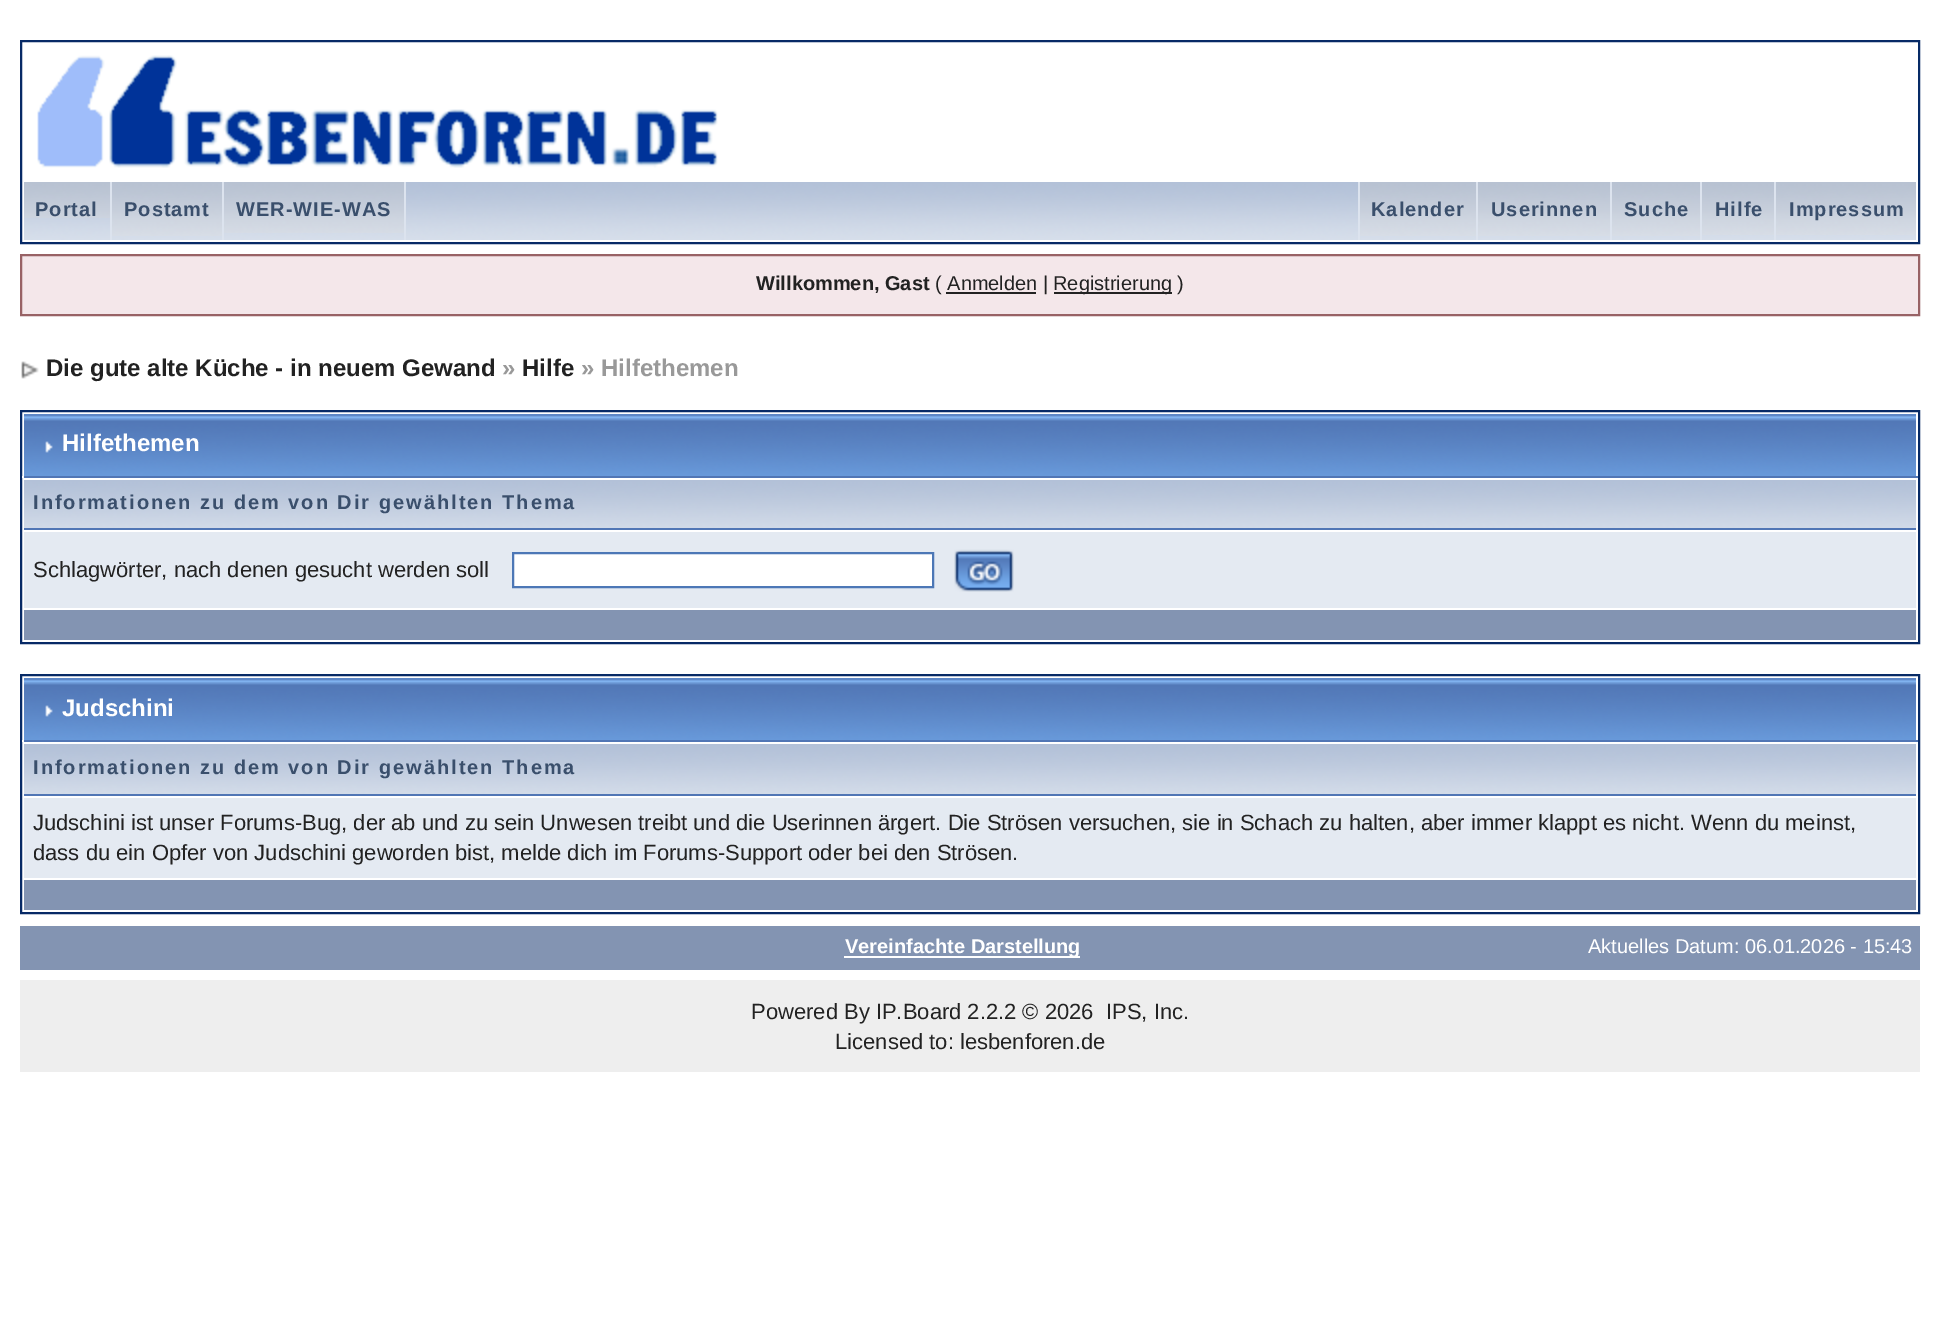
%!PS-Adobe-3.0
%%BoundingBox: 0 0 1940 1332
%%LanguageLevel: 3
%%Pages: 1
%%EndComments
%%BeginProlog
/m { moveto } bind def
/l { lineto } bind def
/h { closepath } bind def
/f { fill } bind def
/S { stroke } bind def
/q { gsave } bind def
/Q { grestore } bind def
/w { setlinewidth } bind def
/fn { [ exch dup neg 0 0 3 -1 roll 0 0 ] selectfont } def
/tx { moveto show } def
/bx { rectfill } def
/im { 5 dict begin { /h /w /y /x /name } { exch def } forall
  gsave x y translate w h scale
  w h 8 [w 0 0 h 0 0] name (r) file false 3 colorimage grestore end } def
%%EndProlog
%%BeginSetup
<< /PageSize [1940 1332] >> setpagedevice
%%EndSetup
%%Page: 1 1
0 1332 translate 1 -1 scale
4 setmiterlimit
1 setgray
0 0 1940 1332 bx
0.027 0.165 0.4 setrgbcolor
2 w
21 41 1898 202 rectstroke
(image0.raw) 37 55 681 113 im
(image1.raw) 24 182 1892 58 im
(image2.raw) 24 182 86 36 im
0.863 0.89 0.933 setrgbcolor
110 182 2 58 bx
/LiberationSans-Bold 20 fn
0.227 0.31 0.424 setrgbcolor
35 216 m 1 0 (Portal) ashow
(image3.raw) 112 182 110 54 im
0.863 0.89 0.933 setrgbcolor
222 182 2 58 bx
0.227 0.31 0.424 setrgbcolor
124 216 m 1 0 (Postamt) ashow
(image4.raw) 224 182 180 51 im
0.863 0.89 0.933 setrgbcolor
404 182 2 58 bx
0.227 0.31 0.424 setrgbcolor
236 216 m 1 0 (WER-WIE-WAS) ashow
(image5.raw) 1360 182 116 54 im
0.863 0.89 0.933 setrgbcolor
1358 182 2 58 bx
0.227 0.31 0.424 setrgbcolor
1371 216 m 1 0 (Kalender) ashow
(image6.raw) 1478 182 132 54 im
0.863 0.89 0.933 setrgbcolor
1476 182 2 58 bx
0.227 0.31 0.424 setrgbcolor
1491 216 m 1 0 (Userinnen) ashow
(image7.raw) 1612 182 88 54 im
0.863 0.89 0.933 setrgbcolor
1610 182 2 58 bx
0.227 0.31 0.424 setrgbcolor
1624 216 m 1 0 (Suche) ashow
(image8.raw) 1702 182 72 53 im
0.863 0.89 0.933 setrgbcolor
1700 182 2 58 bx
0.227 0.31 0.424 setrgbcolor
1715 216 m 1 0 (Hilfe) ashow
(image9.raw) 1776 182 140 53 im
0.863 0.89 0.933 setrgbcolor
1774 182 2 58 bx
0.227 0.31 0.424 setrgbcolor
1789 216 m 1 0 (Impressum) ashow
0.957 0.906 0.918 setrgbcolor
21 255 m 1919 255 l 1919 315 l 21 315 l h q f Q
0.596 0.384 0.396 setrgbcolor
S
0.133 setgray
(Willkommen, Gast) 756 290 tx
/LiberationSans-Regular 20 fn
(\( Anmelden |) 935 290 tx
1054 292 118 2 bx
(Registrierung \)) 1053 290 tx
946 292 90 2 bx
(image10.raw) 21 361 18 18 im
/LiberationSans-Bold 24 fn
(Die gute alte Küche - in neuem Gewand) 46 376 tx
0.6 setgray
(») 502 376 tx
0.133 setgray
(Hilfe) 522 376 tx
0.6 setgray
(» Hilfethemen) 581 376 tx
0.027 0.165 0.4 setrgbcolor
21 411 1898 232 rectstroke
(image11.raw) 24 414 1892 62 im
0.318 0.463 0.71 setrgbcolor
22 476 1896 2 bx
1 setgray
22 476 2 2 bx
(image12.raw) 45 441 8 12 im
(Hilfethemen) 62 451 tx
(image13.raw) 24 480 1892 48 im
0.318 0.463 0.71 setrgbcolor
24 528 1892 2 bx
/LiberationSans-Bold 20 fn
0.227 0.31 0.424 setrgbcolor
33 509 m 2 0 (Informationen zu dem von Dir gewählten Thema) ashow
0.894 0.918 0.949 setrgbcolor
24 532 1892 76 bx
/LiberationSans-Regular 22 fn
0.133 setgray
(Schlagwörter, nach denen gesucht werden soll) 33 577 tx
1 setgray
513 553 m 933 553 l 933 587 l 513 587 l h q f Q
0.298 0.467 0.714 setrgbcolor
S
(image14.raw) 954 549 60 43 im
0.514 0.58 0.698 setrgbcolor
24 610 1892 30 bx
0.027 0.165 0.4 setrgbcolor
21 675 1898 238 rectstroke
(image11.raw) 24 678 1892 62 im
0.318 0.463 0.71 setrgbcolor
22 740 1896 2 bx
1 setgray
22 740 2 2 bx
(image12.raw) 45 705 8 12 im
/LiberationSans-Bold 24 fn
(Judschini) 62 716 tx
(image15.raw) 24 744 1892 50 im
0.318 0.463 0.71 setrgbcolor
24 794 1892 2 bx
/LiberationSans-Bold 20 fn
0.227 0.31 0.424 setrgbcolor
33 774 m 2 0 (Informationen zu dem von Dir gewählten Thema) ashow
0.894 0.918 0.949 setrgbcolor
24 798 1892 80 bx
/LiberationSans-Regular 22 fn
0.133 setgray
(Judschini ist unser Forums-Bug, der ab und zu sein Unwesen treibt und die Userinnen ärgert. Die Strösen versuchen, sie in Schach zu halten, aber immer klappt es nicht. Wenn du meinst,) 33 830 tx
(dass du ein Opfer von Judschini geworden bist, melde dich im Forums-Support oder bei den Strösen.) 33 860 tx
0.514 0.58 0.698 setrgbcolor
24 880 1892 30 bx
20 926 1900 44 bx
1 setgray
844 956 236 2 bx
/LiberationSans-Bold 20 fn
(Vereinfachte Darstellung) 845 953 tx
/LiberationSans-Regular 20 fn
(Aktuelles Datum: 06.01.2026 - 15:43) 1588 953 tx
0.933 setgray
20 980 1900 92 bx
/LiberationSans-Regular 22 fn
0.133 setgray
(Powered By IP.Board 2.2.2 © 2026) 751 1019 tx
(IPS, Inc.) 1106 1019 tx
(Licensed to: lesbenforen.de) 835 1049 tx
showpage
%%EOF
